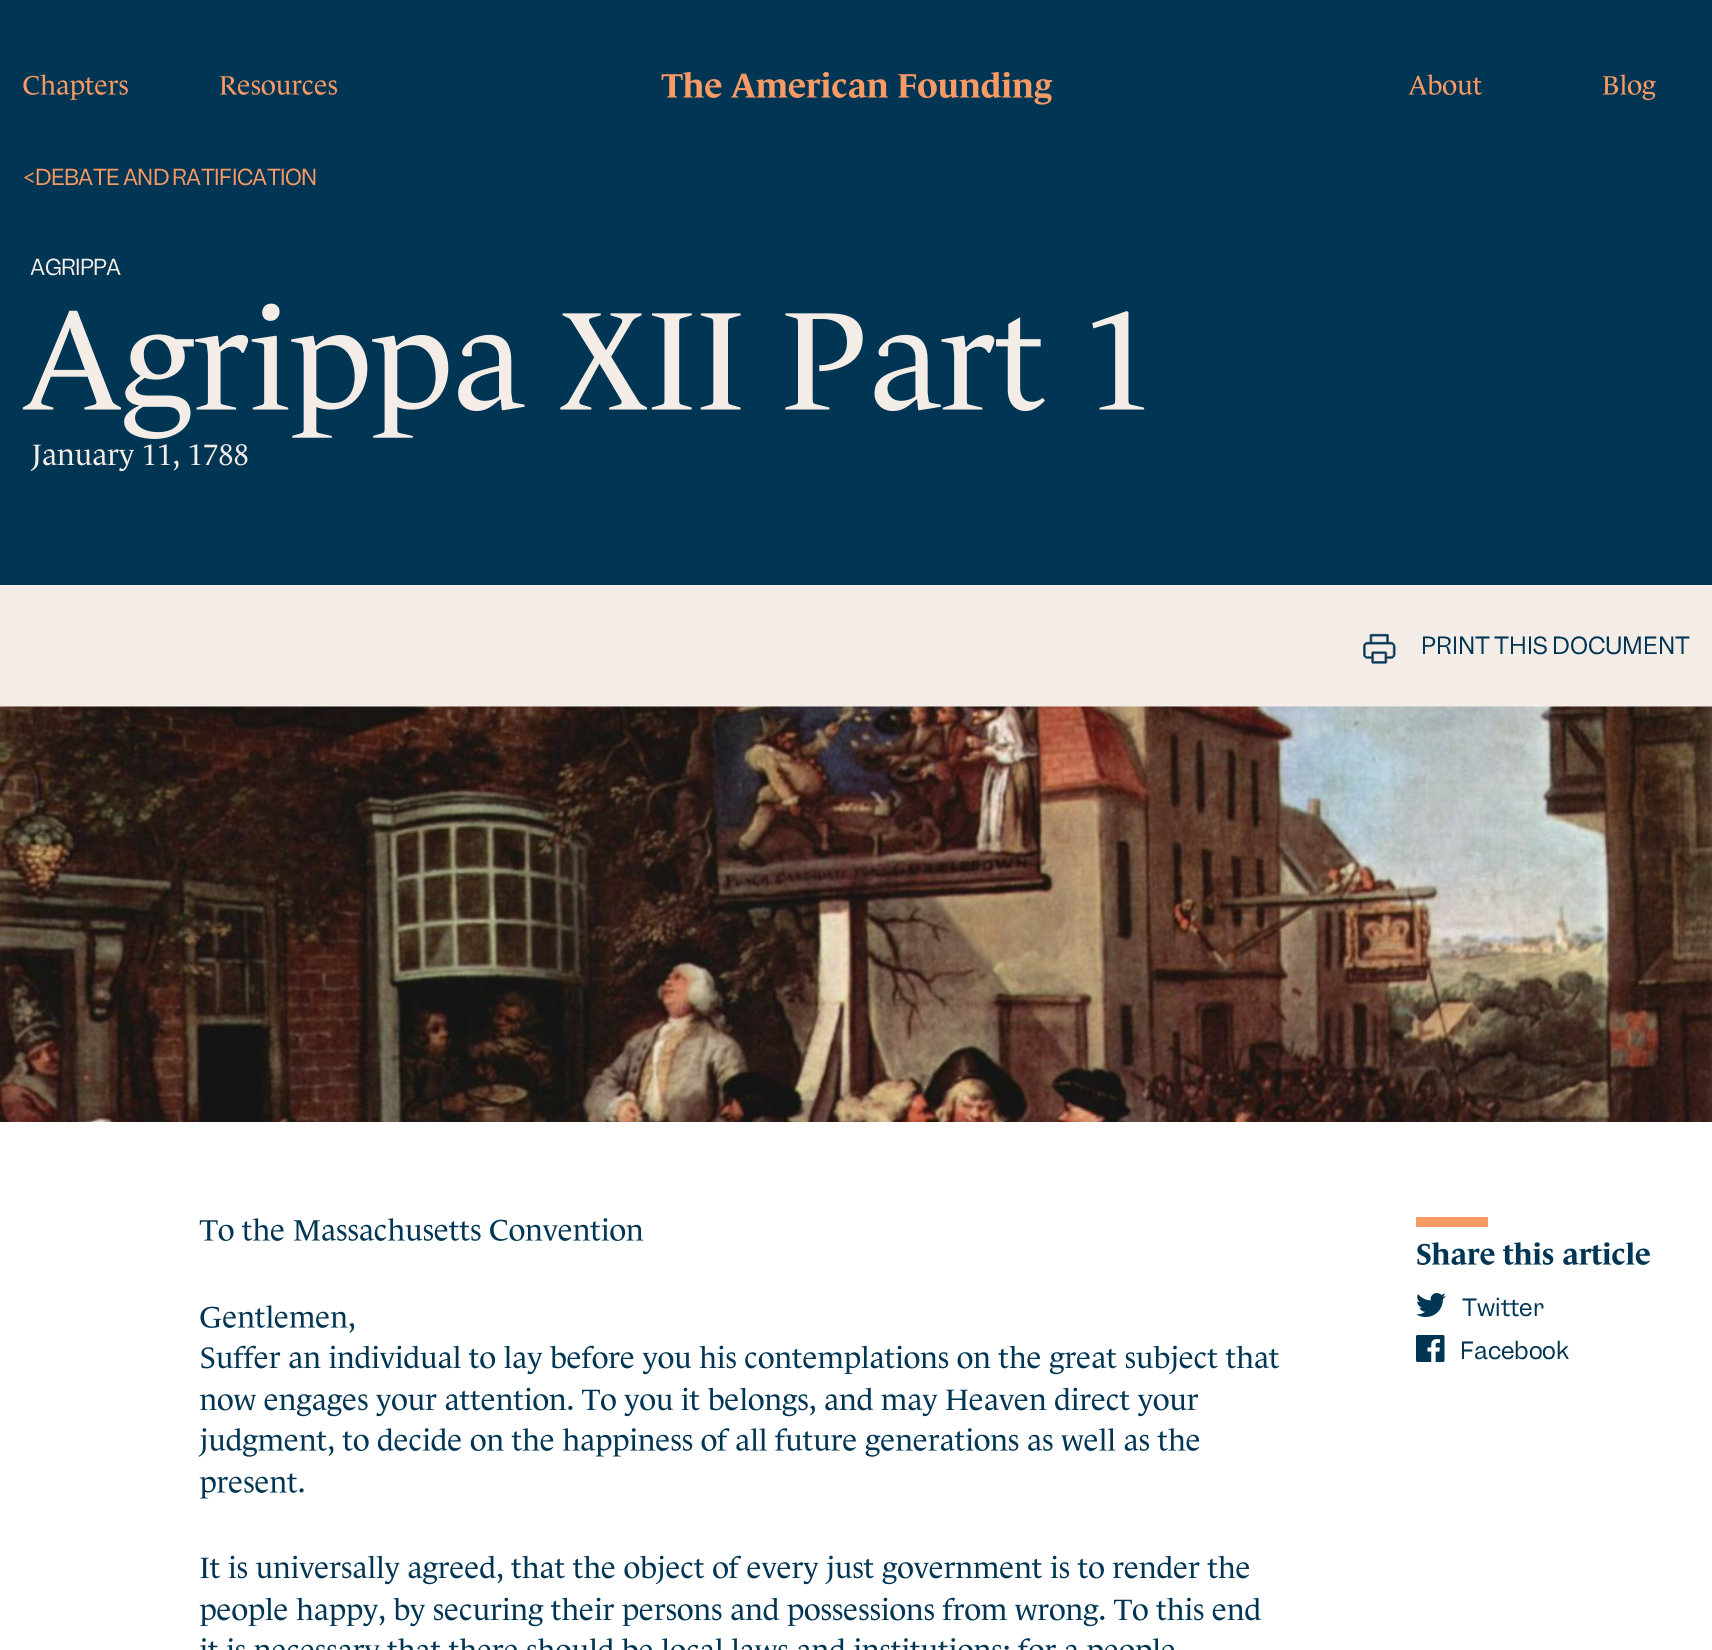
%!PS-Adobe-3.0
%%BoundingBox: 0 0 1712 1650
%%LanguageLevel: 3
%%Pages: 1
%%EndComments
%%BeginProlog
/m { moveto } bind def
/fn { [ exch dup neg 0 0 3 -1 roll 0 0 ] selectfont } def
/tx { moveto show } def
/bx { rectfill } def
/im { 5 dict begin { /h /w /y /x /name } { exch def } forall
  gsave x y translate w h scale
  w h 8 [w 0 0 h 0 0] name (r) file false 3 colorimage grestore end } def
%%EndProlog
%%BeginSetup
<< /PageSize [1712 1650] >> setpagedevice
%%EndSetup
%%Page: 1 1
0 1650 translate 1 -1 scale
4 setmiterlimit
1 setgray
0 0 1712 1650 bx
0 0.208 0.325 setrgbcolor
0 0 1712 585 bx
(image0.raw) 23 74 105 26 im
(image1.raw) 219 76 119 19 im
(image2.raw) 661 72 392 33 im
(image3.raw) 1408 74 74 21 im
(image4.raw) 1602 74 54 27 im
/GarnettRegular-Regular 21 fn
0.973 0.604 0.396 setrgbcolor
23 185 m -0.6 0 (<DEBATE AND RATIFICATION) ashow
0.957 0.925 0.906 setrgbcolor
30 275 m -0.6 0 (AGRIPPA) ashow
(image5.raw) 22 303 1123 136 im
(image6.raw) 30 444 218 28 im
0 585 1712 122 bx
(image7.raw) 1363 633 33 31 im
/GarnettRegular-Regular 22.5 fn
0 0.208 0.325 setrgbcolor
(PRINT THIS DOCUMENT) 1421 654 tx
(image8.raw) 0 706 1712 416 im
(image9.raw) 199 1218 445 23 im
(image10.raw) 200 1305 155 28 im
(image11.raw) 201 1345 1079 30 im
(image12.raw) 199 1387 1000 30 im
(image13.raw) 198 1428 1002 29 im
(image14.raw) 199 1473 105 26 im
(image15.raw) 200 1555 1049 30 im
(image16.raw) 199 1597 1063 30 im
(image17.raw) 200 1638 975 12 im
0.973 0.604 0.396 setrgbcolor
1416 1217 72 10 bx
(image18.raw) 1417 1242 233 23 im
(image19.raw) 1416 1293 30 24 im
0 0.208 0.325 setrgbcolor
(Twitter) 1462 1316 tx
(image20.raw) 1416 1335 29 27 im
(Facebook) 1460 1359 tx
showpage
%%EOF
